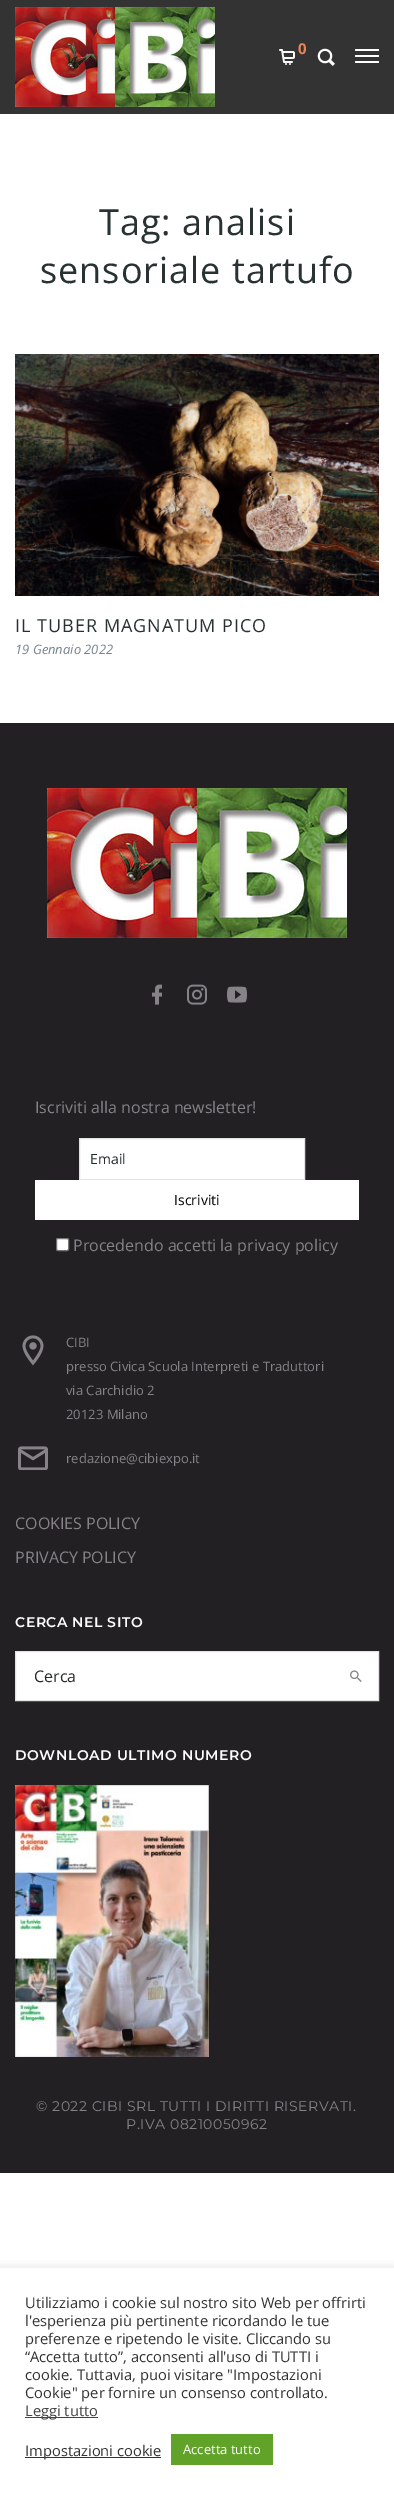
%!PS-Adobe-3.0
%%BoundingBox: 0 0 394 2495
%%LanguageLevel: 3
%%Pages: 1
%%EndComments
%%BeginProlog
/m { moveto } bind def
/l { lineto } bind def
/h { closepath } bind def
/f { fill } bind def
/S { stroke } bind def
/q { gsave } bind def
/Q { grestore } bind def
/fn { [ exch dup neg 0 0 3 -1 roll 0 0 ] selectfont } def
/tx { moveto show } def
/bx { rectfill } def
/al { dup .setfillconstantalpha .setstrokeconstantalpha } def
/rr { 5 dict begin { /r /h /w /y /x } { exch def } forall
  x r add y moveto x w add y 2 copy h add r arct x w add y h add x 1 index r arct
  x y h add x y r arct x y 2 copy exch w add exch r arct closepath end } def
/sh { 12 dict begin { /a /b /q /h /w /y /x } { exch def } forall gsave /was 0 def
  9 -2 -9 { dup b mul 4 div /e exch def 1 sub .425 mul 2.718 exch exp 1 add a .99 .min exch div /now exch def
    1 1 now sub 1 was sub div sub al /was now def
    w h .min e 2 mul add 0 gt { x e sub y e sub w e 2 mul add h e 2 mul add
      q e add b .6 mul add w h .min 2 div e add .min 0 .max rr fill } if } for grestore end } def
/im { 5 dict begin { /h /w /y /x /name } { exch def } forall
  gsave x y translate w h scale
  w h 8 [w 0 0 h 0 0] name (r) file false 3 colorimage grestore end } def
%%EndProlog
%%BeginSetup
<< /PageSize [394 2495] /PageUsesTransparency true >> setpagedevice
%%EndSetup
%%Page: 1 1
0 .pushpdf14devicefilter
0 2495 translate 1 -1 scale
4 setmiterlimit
1 setgray
0 0 394 2495 bx
0.2 setgray
0 0 394 114 bx
(image0.raw) 15 7 200 100 im
(image1.raw) 279 49 16 16 im
/OpenSans-Bold 15 fn
0.902 0.522 0.337 setrgbcolor
(0) 298 54 tx
(image2.raw) 317 48 18 18 im
1 setgray
355 49 24 2 1 rr f
355 55 24 2 1 rr f
355 61 24 2 1 rr f
/OpenSans-Regular 36 fn
0.157 0.196 0.2 setrgbcolor
99 235 m 1 0 (Tag: analisi) ashow
40 283 m 1 0 (sensoriale tartufo) ashow
(image3.raw) 15 354 364 242 im
/OpenSans-Regular 18 fn
15 632 m 1 0 (IL TUBER MAGNATUM PICO) ashow
/OpenSans-Italic 13 fn
0.451 0.518 0.557 setrgbcolor
(19 Gennaio 2022) 15 654 tx
0.133 0.125 0.137 setrgbcolor
0 723 394 1450 bx
(image4.raw) 47 788 300 150 im
(image5.raw) 152 984 10 21 im
(image6.raw) 187 984 20 21 im
(image7.raw) 227 986 20 17 im
/OpenSans-Regular 16 fn
0.525 0.51 0.533 setrgbcolor
(Iscriviti alla nostra newsletter!) 35 1113 tx
1 setgray
79.5 1138.5 m 304.5 1138.5 l 304.5 1179.5 l 79.5 1179.5 l h q f Q
0.89 setgray
S
/OpenSans-Regular 14 fn
0.137 0.161 0.173 setrgbcolor
(Email) 90 1164 tx
1 setgray
35 1180 324 40 bx
0 setgray
(Iscriviti) 174 1205 tx
1 setgray
56.5 1238.5 12 12 1.5 rr q f Q
0.463 setgray
S
/OpenSans-Regular 16 fn
0.525 0.51 0.533 setrgbcolor
(Procedendo accetti la privacy policy) 73 1251 tx
(image8.raw) 22 1335 22 31 im
/OpenSans-Regular 13 fn
(CIBI) 66 1347 tx
(presso Civica Scuola Interpreti e Traduttori) 66 1371 tx
(via Carchidio 2) 66 1395 tx
(20123 Milano) 66 1419 tx
(image9.raw) 18 1446 30 24 im
(redazione@cibiexpo.it) 66 1463 tx
/OpenSans-Regular 16 fn
(COOKIES POLICY) 15 1529 tx
(PRIVACY POLICY) 15 1563 tx
/Montserrat-SemiBold 14 fn
1 setgray
15 1627 m 0.55 0 (CERCA NEL SITO) ashow
15.5 1651.5 m 378.5 1651.5 l 378.5 1700.5 l 15.5 1700.5 l h q f Q
0.89 setgray
S
/OpenSans-Regular 16 fn
0.137 0.161 0.173 setrgbcolor
(Cerca) 34 1682 tx
(image10.raw) 350 1670 12 12 im
/Montserrat-SemiBold 14 fn
1 setgray
15 1760 m 0.55 0 (DOWNLOAD ULTIMO NUMERO) ashow
(image11.raw) 15 1785 194 272 im
/Montserrat-Regular 14 fn
0.525 0.51 0.533 setrgbcolor
36 2111 m 0.55 0 (© 2022 CIBI SRL TUTTI I DIRITTI RISERVATI.) ashow
126 2129 m 0.55 0 (P.IVA 08210050962) ashow
q
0 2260 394 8 rectclip
0.675 0.671 0.671 setrgbcolor
0 2267 394 227 0 5 0.3 sh
Q
/OpenSans-Regular 14.7 fn
0.2 setgray
(Utilizziamo i cookie sul nostro sito Web per offrirti) 25 2308 tx
(l'esperienza più pertinente ricordando le tue) 25 2326 tx
(preferenze e ripetendo le visite. Cliccando su) 25 2344 tx
(“Accetta tutto”, acconsenti all'uso di TUTTI i) 25 2362 tx
(cookie. Tuttavia, puoi visitare "Impostazioni) 25 2380 tx
(Cookie" per fornire un consenso controllato.) 25 2398 tx
0.267 setgray
25 2417 73 1 bx
(Leggi tutto) 25 2416 tx
0.2 setgray
25 2457 136 1 bx
(Impostazioni cookie) 25 2456 tx
0.38 0.635 0.161 setrgbcolor
171 2434 102 31 bx
/OpenSans-Regular 13 fn
1 setgray
(Accetta tutto) 183 2454 tx
.poppdf14devicefilter showpage
%%EOF
